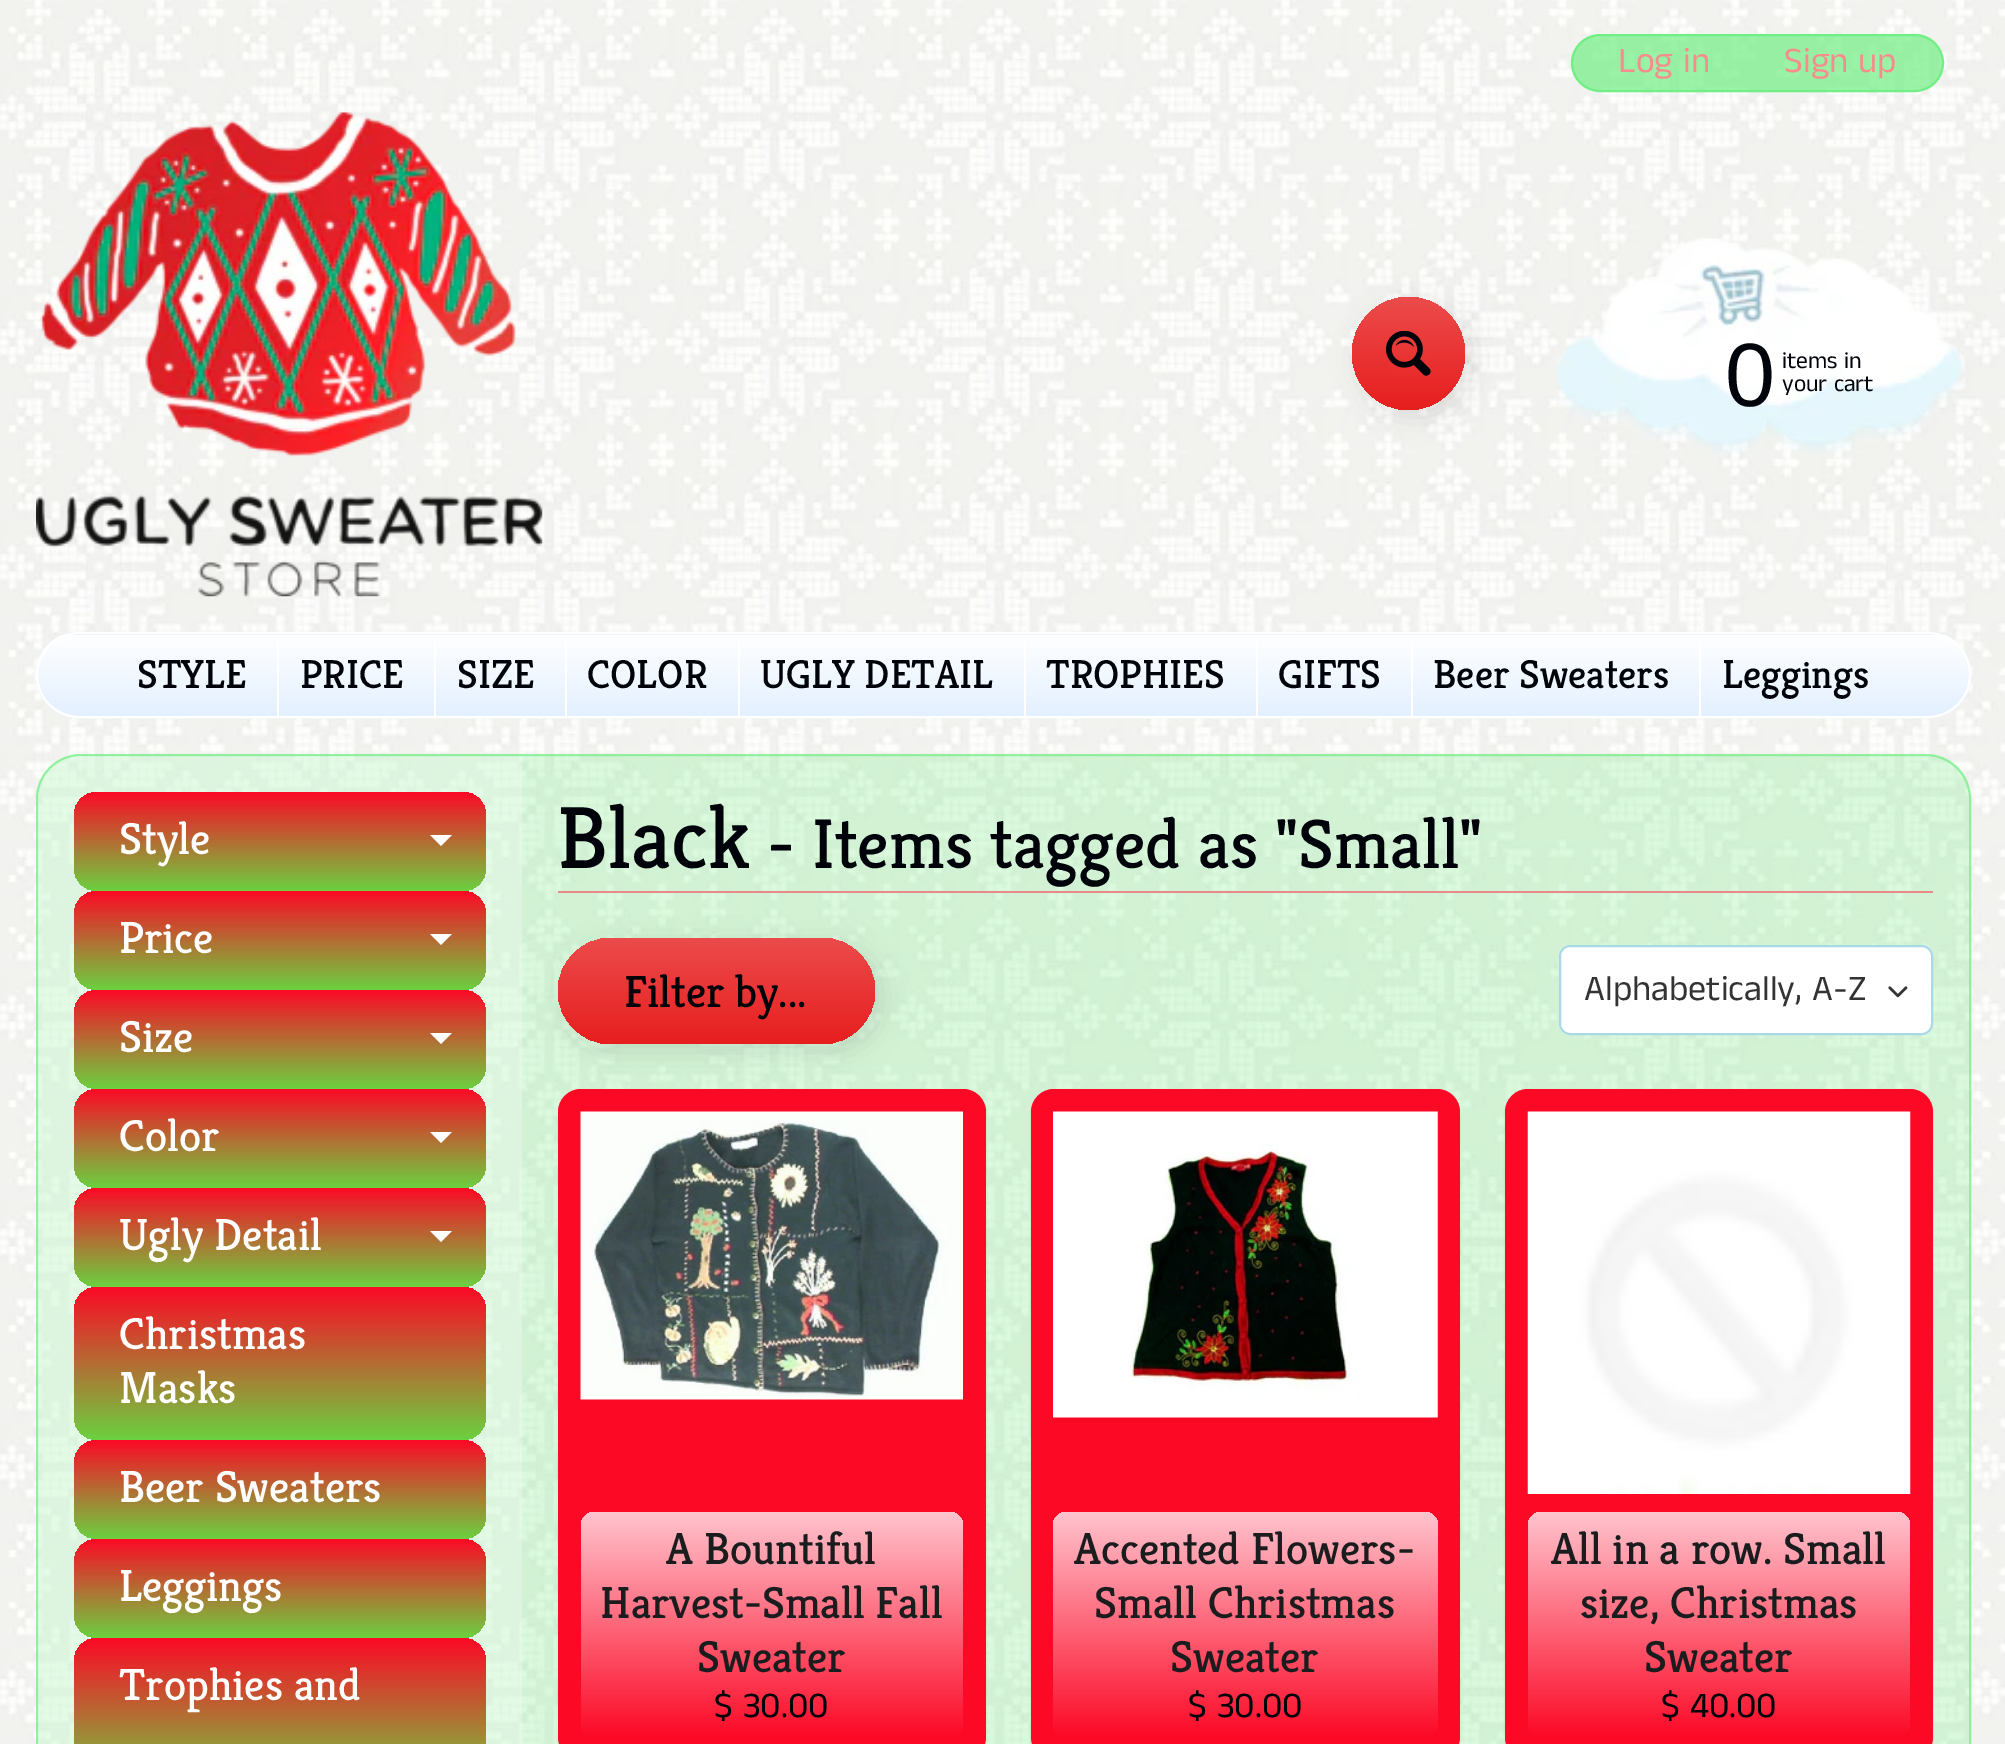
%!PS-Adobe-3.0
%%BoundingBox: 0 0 2005 1744
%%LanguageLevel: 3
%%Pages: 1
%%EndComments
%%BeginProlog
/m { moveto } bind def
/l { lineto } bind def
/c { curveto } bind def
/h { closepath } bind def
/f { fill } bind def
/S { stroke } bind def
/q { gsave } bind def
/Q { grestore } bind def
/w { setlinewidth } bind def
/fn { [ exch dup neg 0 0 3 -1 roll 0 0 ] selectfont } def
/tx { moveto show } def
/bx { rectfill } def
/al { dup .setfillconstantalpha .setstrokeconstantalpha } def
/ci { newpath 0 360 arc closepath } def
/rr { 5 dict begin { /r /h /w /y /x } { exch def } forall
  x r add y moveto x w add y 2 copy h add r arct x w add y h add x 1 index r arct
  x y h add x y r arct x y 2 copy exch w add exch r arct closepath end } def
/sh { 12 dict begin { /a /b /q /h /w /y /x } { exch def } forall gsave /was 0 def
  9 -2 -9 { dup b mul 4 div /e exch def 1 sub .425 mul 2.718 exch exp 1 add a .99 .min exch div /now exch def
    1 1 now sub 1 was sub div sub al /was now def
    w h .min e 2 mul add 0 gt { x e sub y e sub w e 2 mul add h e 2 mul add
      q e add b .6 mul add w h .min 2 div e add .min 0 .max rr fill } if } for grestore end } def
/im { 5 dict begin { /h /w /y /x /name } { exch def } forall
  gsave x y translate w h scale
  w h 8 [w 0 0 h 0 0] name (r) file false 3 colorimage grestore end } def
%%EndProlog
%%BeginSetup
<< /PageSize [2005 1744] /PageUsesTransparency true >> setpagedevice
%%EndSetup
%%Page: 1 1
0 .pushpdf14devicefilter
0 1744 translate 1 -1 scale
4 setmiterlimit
1 setgray
0 0 2005 1744 bx
(image0.raw) 0 0 2005 1744 im
(image1.raw) 36 112 507 485 im
0.7 al
0.443 0.933 0.518 setrgbcolor
1572 35 371 56 28 rr f
1 al
2 w
1572 35 371 56 28 rr S
/AnekTamil-Regular 36 fn
0.965 0.549 0.549 setrgbcolor
(Log in) 1618 72 tx
(Sign up) 1784 72 tx
0 setgray
1359 304 113 112 56 13.5 0.1 sh
q 1408.5 353.5 56.5 ci clip newpath
<< /ShadingType 2 /ColorSpace /DeviceRGB /Coords [1409 297 1409 410] /Extend [true true] /Function << /FunctionType 2 /Domain [0 1] /C0 [0.925 0.294 0.294] /C1 [0.906 0.118 0.118] /N 1 >> >> shfill Q
(image2.raw) 1386 331 45 45 im
(image3.raw) 1556 238 407 217 im
/LiberationSans-Regular 90 fn
0.004 0.012 0.043 setrgbcolor
(0) 1725 406 tx
/AnekTamil-Regular 23.5 fn
(items in) 1782 368 tx
(your cart) 1782 391 tx
q
36 632 1935 86 43 rr clip newpath
q 63 632 m 1944 632 l 1944 635 l 63 635 l h clip newpath
<< /ShadingType 2 /ColorSpace /DeviceRGB /Coords [1004 553 1004 635] /Extend [true true] /Function << /FunctionType 2 /Domain [0 1] /C0 [1 1 1] /C1 [0.89 0.941 1] /N 1 >> >> shfill Q
q 36 635 m 1971 635 l 1971 716 l 36 716 l h clip newpath
<< /ShadingType 2 /ColorSpace /DeviceRGB /Coords [1004 634 1004 716] /Extend [true true] /Function << /FunctionType 2 /Domain [0 1] /C0 [1 1 1] /C1 [0.89 0.941 1] /N 1 >> >> shfill Q
Q
1 setgray
37 633 1933 84 42 rr S
/Kreon-Regular 40.5 fn
0.004 0.012 0.043 setrgbcolor
(STYLE) 137 688 tx
1 setgray
277 635 2 81 bx
0.004 0.012 0.043 setrgbcolor
(PRICE) 300 688 tx
1 setgray
434 635 2 81 bx
0.004 0.012 0.043 setrgbcolor
(SIZE) 457 688 tx
1 setgray
565 635 2 81 bx
0.004 0.012 0.043 setrgbcolor
(COLOR) 587 688 tx
1 setgray
738 635 2 81 bx
0.004 0.012 0.043 setrgbcolor
(UGLY DETAIL) 760 688 tx
1 setgray
1024 635 2 81 bx
0.004 0.012 0.043 setrgbcolor
(TROPHIES) 1046 688 tx
1 setgray
1256 635 2 81 bx
0.004 0.012 0.043 setrgbcolor
(GIFTS) 1278 688 tx
1 setgray
1411 635 2 81 bx
0.004 0.012 0.043 setrgbcolor
(Beer Sweaters) 1433 688 tx
1 setgray
1699 635 2 81 bx
0.004 0.012 0.043 setrgbcolor
(Leggings) 1722 688 tx
0.25 al
0.443 0.933 0.518 setrgbcolor
36 754 1935 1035 45 rr f
0.7 al
37 755 1933 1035 44 rr S
0.25 al
1 setgray
81 756 m 522 756 l 522 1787 l 81 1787 l 57.5 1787 38 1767.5 38 1744 c 38 799 l 38 775.5 57.5 756 81 756 c h f
1 al
q 74 792 412 99 23 rr clip newpath
<< /ShadingType 2 /ColorSpace /DeviceRGB /Coords [280 792 280 891] /Extend [true true] /Function << /FunctionType 2 /Domain [0 1] /C0 [0.988 0.035 0.149] /C1 [0.42 0.82 0.251] /N 1 >> >> shfill Q
/Kreon-Regular 45 fn
(Style) 119 854 tx
430 835 m 452 835 l 441 846 l h f
q 74 891 412 99 23 rr clip newpath
<< /ShadingType 2 /ColorSpace /DeviceRGB /Coords [280 891 280 990] /Extend [true true] /Function << /FunctionType 2 /Domain [0 1] /C0 [0.988 0.035 0.149] /C1 [0.42 0.82 0.251] /N 1 >> >> shfill Q
(Price) 119 953 tx
430 934 m 452 934 l 441 945 l h f
q 74 990 412 99 23 rr clip newpath
<< /ShadingType 2 /ColorSpace /DeviceRGB /Coords [280 990 280 1089] /Extend [true true] /Function << /FunctionType 2 /Domain [0 1] /C0 [0.988 0.035 0.149] /C1 [0.42 0.82 0.251] /N 1 >> >> shfill Q
(Size) 119 1052 tx
430 1033 m 452 1033 l 441 1044 l h f
q 74 1089 412 99 23 rr clip newpath
<< /ShadingType 2 /ColorSpace /DeviceRGB /Coords [280 1089 280 1188] /Extend [true true] /Function << /FunctionType 2 /Domain [0 1] /C0 [0.988 0.035 0.149] /C1 [0.42 0.82 0.251] /N 1 >> >> shfill Q
(Color) 119 1151 tx
430 1132 m 452 1132 l 441 1143 l h f
q 74 1188 412 99 23 rr clip newpath
<< /ShadingType 2 /ColorSpace /DeviceRGB /Coords [280 1188 280 1287] /Extend [true true] /Function << /FunctionType 2 /Domain [0 1] /C0 [0.988 0.035 0.149] /C1 [0.42 0.82 0.251] /N 1 >> >> shfill Q
(Ugly Detail) 119 1250 tx
430 1231 m 452 1231 l 441 1242 l h f
q 74 1287 412 153 23 rr clip newpath
<< /ShadingType 2 /ColorSpace /DeviceRGB /Coords [280 1287 280 1440] /Extend [true true] /Function << /FunctionType 2 /Domain [0 1] /C0 [0.988 0.035 0.149] /C1 [0.42 0.82 0.251] /N 1 >> >> shfill Q
(Christmas) 119 1349 tx
(Masks) 119 1403 tx
q 74 1440 412 99 23 rr clip newpath
<< /ShadingType 2 /ColorSpace /DeviceRGB /Coords [280 1440 280 1539] /Extend [true true] /Function << /FunctionType 2 /Domain [0 1] /C0 [0.988 0.035 0.149] /C1 [0.42 0.82 0.251] /N 1 >> >> shfill Q
(Beer Sweaters) 119 1502 tx
q 74 1539 412 99 23 rr clip newpath
<< /ShadingType 2 /ColorSpace /DeviceRGB /Coords [280 1539 280 1638] /Extend [true true] /Function << /FunctionType 2 /Domain [0 1] /C0 [0.988 0.035 0.149] /C1 [0.42 0.82 0.251] /N 1 >> >> shfill Q
(Leggings) 119 1601 tx
q 74 1638 412 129 23 rr clip newpath
<< /ShadingType 2 /ColorSpace /DeviceRGB /Coords [280 1638 280 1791] /Extend [true true] /Function << /FunctionType 2 /Domain [0 1] /C0 [0.988 0.035 0.149] /C1 [0.42 0.82 0.251] /N 1 >> >> shfill Q
(Trophies and) 119 1700 tx
0.925 0.533 0.533 setrgbcolor
558 891 1375 2 bx
/Kreon-Regular 88 fn
0.004 0.012 0.043 setrgbcolor
(Black) 557 868 tx
/Kreon-Regular 70.25 fn
(- Items tagged as "Small") 767 868 tx
0 setgray
565 945 317 106 53 13.5 0.1 sh
q 558 938 317 106 53 rr clip newpath
<< /ShadingType 2 /ColorSpace /DeviceRGB /Coords [717 938 717 1044] /Extend [true true] /Function << /FunctionType 2 /Domain [0 1] /C0 [0.925 0.294 0.294] /C1 [0.906 0.118 0.118] /N 1 >> >> shfill Q
/Kreon-Regular 45 fn
0.004 0.012 0.043 setrgbcolor
(Filter by...) 624 1007 tx
1 setgray
1559 945 374 90 11 rr f
(image4.raw) 1888 986 20 12 im
0.667 0.851 0.902 setrgbcolor
1560 946 372 88 10 rr S
/AnekTamil-Regular 36 fn
0.2 setgray
(Alphabetically, A-Z) 1584 1000 tx
0 setgray
558 1091 428 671 23 1 0.1 sh
0.988 0.035 0.149 setrgbcolor
558 1089 428 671 23 rr f
(image5.raw) 580 1111 383 289 im
q 581 1512 382 225 14 rr clip newpath
<< /ShadingType 2 /ColorSpace /DeviceRGB /Coords [772 1512 772 1737] /Extend [true true] /Function << /FunctionType 2 /Domain [0 1] /C0 [1 0.769 0.808] /C1 [0.988 0.035 0.149] /N 1 >> >> shfill Q
/Kreon-Regular 45 fn
0.106 0.11 0.118 setrgbcolor
(A Bountiful) 666 1564 tx
(Harvest-Small Fall) 600 1618 tx
(Sweater) 697 1672 tx
/AnekTamil-Regular 36 fn
0.004 0.012 0.043 setrgbcolor
($ 30.00) 714 1717 tx
0 setgray
1031 1091 429 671 23 1 0.1 sh
0.988 0.035 0.149 setrgbcolor
1031 1089 429 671 23 rr f
(image6.raw) 1053 1111 385 307 im
q 1053 1512 385 225 14 rr clip newpath
<< /ShadingType 2 /ColorSpace /DeviceRGB /Coords [1245 1512 1245 1737] /Extend [true true] /Function << /FunctionType 2 /Domain [0 1] /C0 [1 0.769 0.808] /C1 [0.988 0.035 0.149] /N 1 >> >> shfill Q
/Kreon-Regular 45 fn
0.106 0.11 0.118 setrgbcolor
(Accented Flowers-) 1074 1564 tx
(Small Christmas) 1094 1618 tx
(Sweater) 1170 1672 tx
/AnekTamil-Regular 36 fn
0.004 0.012 0.043 setrgbcolor
($ 30.00) 1188 1717 tx
0 setgray
1505 1091 428 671 23 1 0.1 sh
0.988 0.035 0.149 setrgbcolor
1505 1089 428 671 23 rr f
(image7.raw) 1527 1111 384 383 im
q 1528 1512 382 225 14 rr clip newpath
<< /ShadingType 2 /ColorSpace /DeviceRGB /Coords [1719 1512 1719 1737] /Extend [true true] /Function << /FunctionType 2 /Domain [0 1] /C0 [1 0.769 0.808] /C1 [0.988 0.035 0.149] /N 1 >> >> shfill Q
/Kreon-Regular 45 fn
0.106 0.11 0.118 setrgbcolor
(All in a row. Small) 1551 1564 tx
(size, Christmas) 1580 1618 tx
(Sweater) 1644 1672 tx
/AnekTamil-Regular 36 fn
0.004 0.012 0.043 setrgbcolor
($ 40.00) 1661 1717 tx
.poppdf14devicefilter showpage
%%EOF
